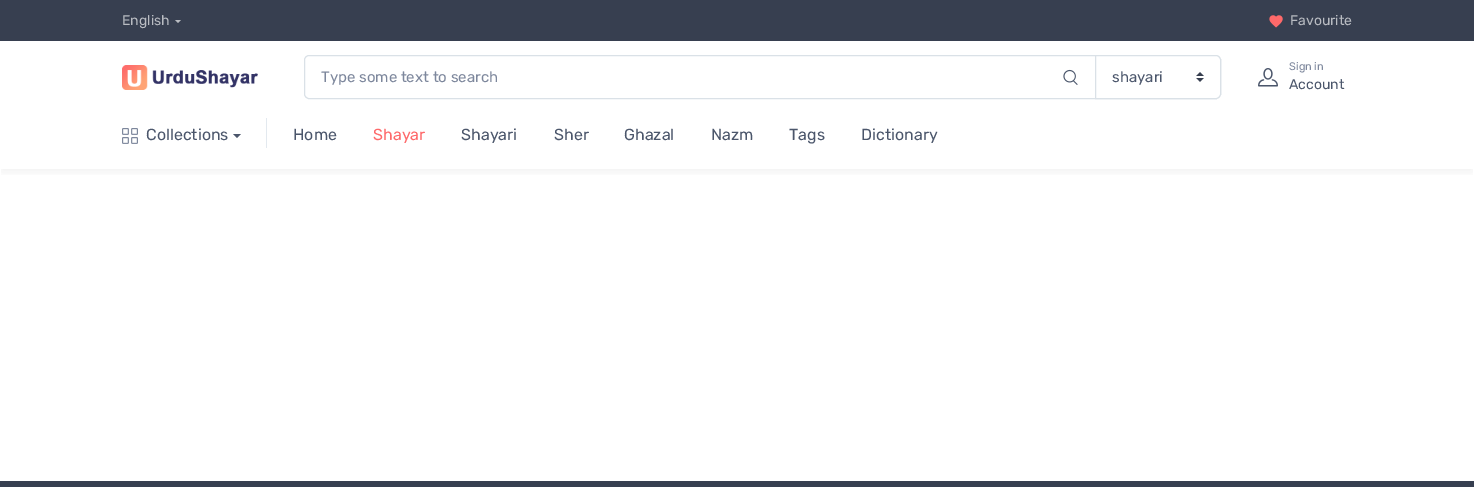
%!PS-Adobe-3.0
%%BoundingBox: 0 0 1474 487
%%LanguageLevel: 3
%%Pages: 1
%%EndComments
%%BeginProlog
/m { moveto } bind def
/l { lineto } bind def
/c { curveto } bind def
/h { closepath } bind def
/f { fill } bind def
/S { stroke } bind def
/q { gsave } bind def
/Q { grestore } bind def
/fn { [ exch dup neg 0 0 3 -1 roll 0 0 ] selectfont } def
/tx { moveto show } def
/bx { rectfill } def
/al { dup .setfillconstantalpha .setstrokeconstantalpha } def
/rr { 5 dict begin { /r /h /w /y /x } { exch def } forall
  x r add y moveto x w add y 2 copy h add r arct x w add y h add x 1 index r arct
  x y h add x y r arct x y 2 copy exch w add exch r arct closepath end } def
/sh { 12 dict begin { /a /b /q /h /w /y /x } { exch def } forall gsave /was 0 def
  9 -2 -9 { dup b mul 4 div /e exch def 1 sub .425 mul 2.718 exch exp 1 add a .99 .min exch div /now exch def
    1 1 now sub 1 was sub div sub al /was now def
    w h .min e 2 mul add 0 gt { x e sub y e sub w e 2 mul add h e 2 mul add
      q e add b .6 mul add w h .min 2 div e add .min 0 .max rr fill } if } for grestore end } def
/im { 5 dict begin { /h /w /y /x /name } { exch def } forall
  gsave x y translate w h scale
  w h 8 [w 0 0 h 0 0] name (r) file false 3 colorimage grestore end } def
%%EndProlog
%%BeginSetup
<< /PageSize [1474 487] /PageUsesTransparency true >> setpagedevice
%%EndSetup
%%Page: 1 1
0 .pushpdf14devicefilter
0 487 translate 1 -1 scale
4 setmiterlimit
1 setgray
0 0 1474 487 bx
q
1 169 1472 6 rectclip
0 setgray
1 5 1472 167 0 6 0.06 sh
Q
0.216 0.247 0.314 setrgbcolor
0 0 1474 41 bx
/Rubik-Regular 14 fn
0.725 0.737 0.761 setrgbcolor
(English) 122 25 tx
175 20 m 181 20 l 178 23 l h f
(image0.raw) 1269 15 14 13 im
(Favourite) 1290 25 tx
(image1.raw) 122 65 136 25 im
0.855 0.882 0.906 setrgbcolor
304.5 55.5 916 43 4.5 rr S
/Rubik-Regular 15 fn
0.49 0.529 0.612 setrgbcolor
(Type some text to search) 321 82 tx
(image2.raw) 1063 69 15 16 im
1 setgray
1095 55 m 1216 55 l 1219 55 1221 57 1221 60 c 1221 94 l 1221 97 1219 99 1216 99 c 1095 99 l h f
(image3.raw) 1196 72 8 10 im
0.855 0.882 0.906 setrgbcolor
1095.5 55.5 m 1216 55.5 l 1218.5 55.5 1220.5 57.5 1220.5 60 c 1220.5 94 l 1220.5 96.5 1218.5 98.5 1216 98.5 c 1095.5 98.5 l h S
0.294 0.337 0.42 setrgbcolor
(shayari) 1112 82 tx
(image4.raw) 1258 68 20 19 im
/Rubik-Regular 11 fn
0.49 0.529 0.612 setrgbcolor
(Sign in) 1289 70 tx
/Rubik-Regular 14 fn
0.294 0.337 0.42 setrgbcolor
(Account) 1289 89 tx
(image5.raw) 122 128 16 16 im
/Rubik-Regular 16 fn
(Collections) 146 140 tx
233 134 m 241 134 l 237 138 l h f
0.89 0.914 0.937 setrgbcolor
266 118 1 30 bx
0.294 0.337 0.42 setrgbcolor
(Home) 293 140 tx
0.996 0.412 0.416 setrgbcolor
(Shayar) 373 140 tx
0.294 0.337 0.42 setrgbcolor
(Shayari) 461 140 tx
(Sher) 554 140 tx
(Ghazal) 624 140 tx
(Nazm) 711 140 tx
(Tags) 789 140 tx
(Dictionary) 861 140 tx
0.216 0.247 0.314 setrgbcolor
0 481 1474 6 bx
.poppdf14devicefilter showpage
%%EOF
